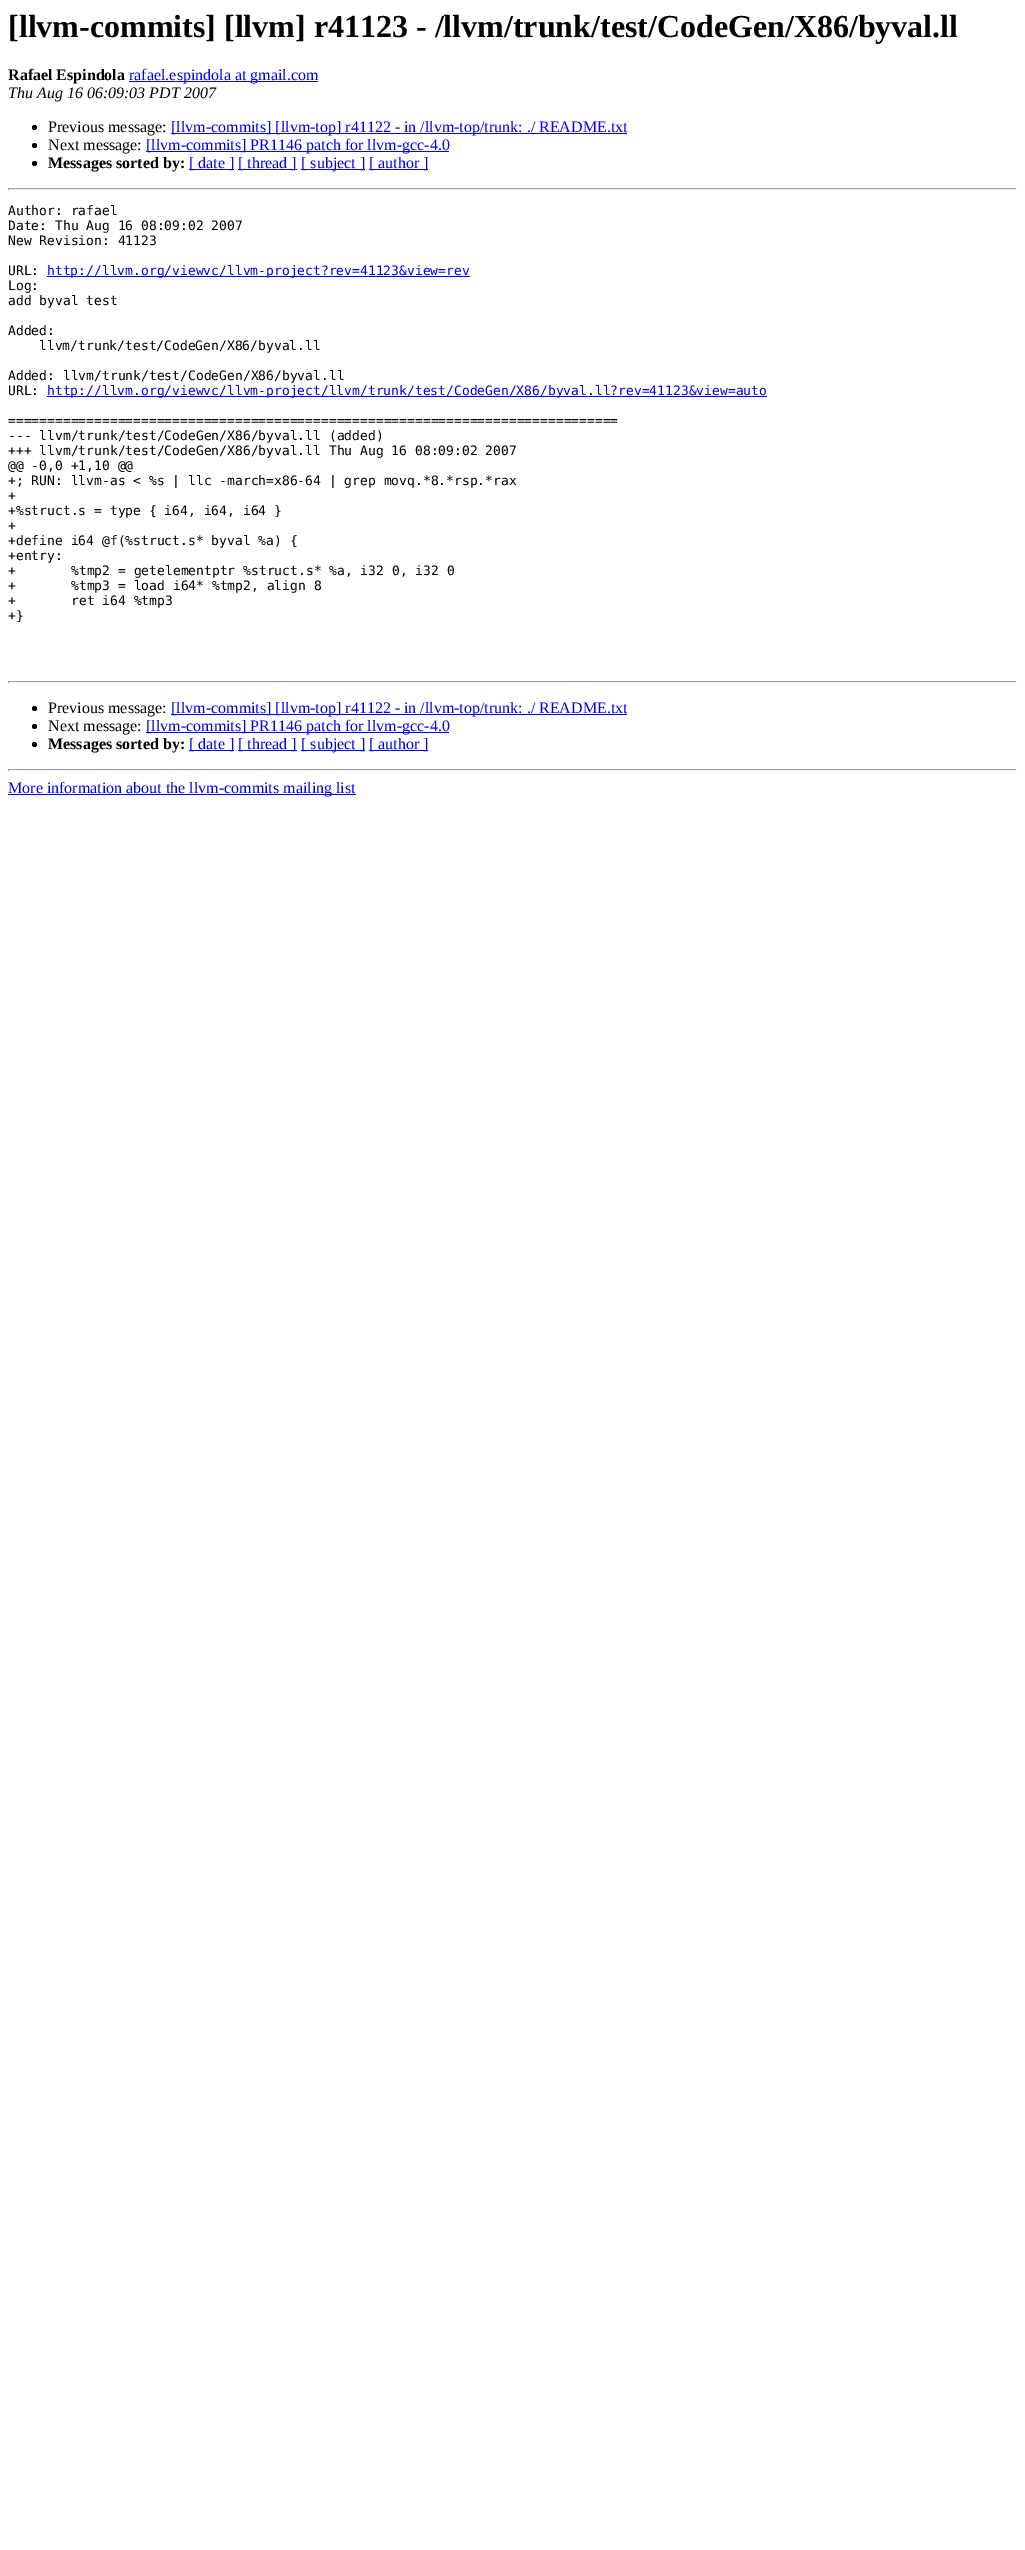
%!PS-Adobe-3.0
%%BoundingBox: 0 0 1025 2550
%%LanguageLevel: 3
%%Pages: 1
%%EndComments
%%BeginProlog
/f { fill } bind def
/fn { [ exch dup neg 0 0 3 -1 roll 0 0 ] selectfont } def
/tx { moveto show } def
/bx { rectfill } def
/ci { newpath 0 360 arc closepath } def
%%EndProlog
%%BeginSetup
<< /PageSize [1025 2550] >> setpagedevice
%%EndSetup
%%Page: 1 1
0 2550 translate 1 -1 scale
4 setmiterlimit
1 setgray
0 0 1025 2550 bx
/LiberationSerif-Bold 32 fn
0 setgray
([llvm-commits] [llvm] r41123 - /llvm/trunk/test/CodeGen/X86/byval.ll) 8 37 tx
/LiberationSerif-Bold 16 fn
(Rafael Espindola) 8 80 tx
0 0 0.933 setrgbcolor
129 81 189 1 bx
/LiberationSerif-Regular 16 fn
(rafael.espindola at gmail.com) 129 80 tx
/LiberationSerif-Italic 16 fn
0 setgray
(Thu Aug 16 06:09:03 PDT 2007) 8 98 tx
34.5 127.5 2.5 ci f
/LiberationSerif-Regular 16 fn
(Previous message:) 48 132 tx
0 0 0.933 setrgbcolor
171 133 456 1 bx
([llvm-commits] [llvm-top] r41122 - in /llvm-top/trunk: ./ README.txt) 171 132 tx
0 setgray
34.5 145.5 2.5 ci f
(Next message:) 48 150 tx
0 0 0.933 setrgbcolor
146 151 303 1 bx
([llvm-commits] PR1146 patch for llvm-gcc-4.0) 146 150 tx
0 setgray
34.5 163.5 2.5 ci f
/LiberationSerif-Bold 16 fn
(Messages sorted by:) 48 168 tx
0 0 0.933 setrgbcolor
189 169 45 1 bx
/LiberationSerif-Regular 16 fn
([ date ]) 189 168 tx
238 169 59 1 bx
([ thread ]) 238 168 tx
301 169 64 1 bx
([ subject ]) 301 168 tx
369 169 59 1 bx
([ author ]) 369 168 tx
0.624 setgray
8 188 1009 1 bx
0.933 setgray
1016 188 1 2 bx
8 189 1009 1 bx
0.624 setgray
8 188 1 2 bx
/DejaVuSansMono-Regular 13 fn
0 setgray
(Author: rafael) 8 215 tx
(Date: Thu Aug 16 08:09:02 2007) 8 230 tx
(New Revision: 41123) 8 245 tx
(URL:) 8 275 tx
0 0 0.933 setrgbcolor
47 276 423 1 bx
(http://llvm.org/viewvc/llvm-project?rev=41123&view=rev) 47 275 tx
0 setgray
(Log:) 8 290 tx
(add byval test) 8 305 tx
(Added:) 8 335 tx
(llvm/trunk/test/CodeGen/X86/byval.ll) 39 350 tx
(Added: llvm/trunk/test/CodeGen/X86/byval.ll) 8 380 tx
(URL:) 8 395 tx
0 0 0.933 setrgbcolor
47 396 720 1 bx
(http://llvm.org/viewvc/llvm-project/llvm/trunk/test/CodeGen/X86/byval.ll?rev=41123&view=auto) 47 395 tx
0 setgray
(==============================================================================) 8 425 tx
(--- llvm/trunk/test/CodeGen/X86/byval.ll \(added\)) 8 440 tx
(+++ llvm/trunk/test/CodeGen/X86/byval.ll Thu Aug 16 08:09:02 2007) 8 455 tx
(@@ -0,0 +1,10 @@) 8 470 tx
(+; RUN: llvm-as < %s | llc -march=x86-64 | grep movq.*8.*rsp.*rax) 8 485 tx
(+) 8 500 tx
(+%struct.s = type { i64, i64, i64 }) 8 515 tx
(+) 8 530 tx
(+define i64 @f\(%struct.s* byval %a\) {) 8 545 tx
(+entry:) 8 560 tx
(+) 8 575 tx
(%tmp2 = getelementptr %struct.s* %a, i32 0, i32 0) 71 575 tx
(+) 8 590 tx
(%tmp3 = load i64* %tmp2, align 8) 71 590 tx
(+) 8 605 tx
(ret i64 %tmp3) 71 605 tx
(+}) 8 620 tx
0.624 setgray
8 681 1009 1 bx
0.933 setgray
1016 681 1 2 bx
8 682 1009 1 bx
0.624 setgray
8 681 1 2 bx
0 setgray
34.5 708.5 2.5 ci f
/LiberationSerif-Regular 16 fn
(Previous message:) 48 713 tx
0 0 0.933 setrgbcolor
171 714 456 1 bx
([llvm-commits] [llvm-top] r41122 - in /llvm-top/trunk: ./ README.txt) 171 713 tx
0 setgray
34.5 726.5 2.5 ci f
(Next message:) 48 731 tx
0 0 0.933 setrgbcolor
146 732 303 1 bx
([llvm-commits] PR1146 patch for llvm-gcc-4.0) 146 731 tx
0 setgray
34.5 744.5 2.5 ci f
/LiberationSerif-Bold 16 fn
(Messages sorted by:) 48 749 tx
0 0 0.933 setrgbcolor
189 750 45 1 bx
/LiberationSerif-Regular 16 fn
([ date ]) 189 749 tx
238 750 59 1 bx
([ thread ]) 238 749 tx
301 750 64 1 bx
([ subject ]) 301 749 tx
369 750 59 1 bx
([ author ]) 369 749 tx
0.624 setgray
8 769 1009 1 bx
0.933 setgray
1016 769 1 2 bx
8 770 1009 1 bx
0.624 setgray
8 769 1 2 bx
0 0 0.933 setrgbcolor
8 794 348 1 bx
(More information about the llvm-commits mailing list) 8 793 tx
showpage
%%EOF
